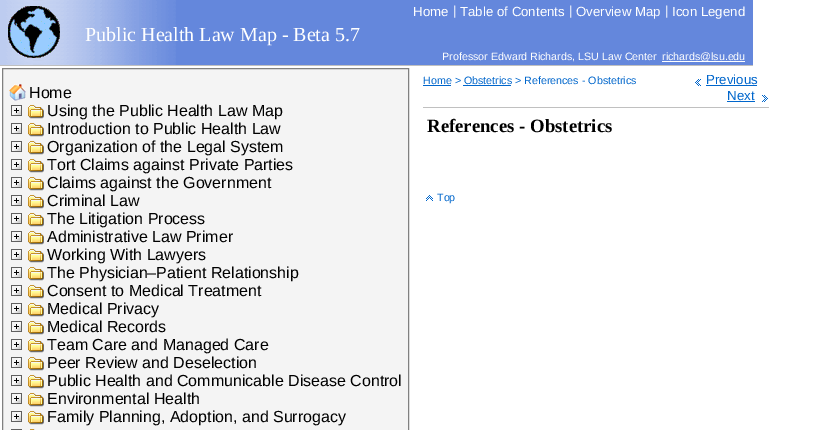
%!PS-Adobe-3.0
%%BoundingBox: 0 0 837 430
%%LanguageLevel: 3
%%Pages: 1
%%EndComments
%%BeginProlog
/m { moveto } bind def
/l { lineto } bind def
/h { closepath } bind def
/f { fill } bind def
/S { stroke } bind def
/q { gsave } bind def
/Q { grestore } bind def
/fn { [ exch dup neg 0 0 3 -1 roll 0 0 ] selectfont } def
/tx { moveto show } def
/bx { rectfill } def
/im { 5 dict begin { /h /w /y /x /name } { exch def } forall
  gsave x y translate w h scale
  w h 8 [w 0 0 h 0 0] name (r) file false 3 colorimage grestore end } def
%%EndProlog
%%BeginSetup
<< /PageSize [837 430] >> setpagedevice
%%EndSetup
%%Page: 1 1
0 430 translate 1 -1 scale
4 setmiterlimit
1 setgray
0 0 837 430 bx
0.392 0.529 0.863 setrgbcolor
176 0 577 65 bx
(image0.raw) 0 0 176 65 im
0.753 setgray
0 65 753 1 bx
(image1.raw) 8 6 52 52 im
/LiberationSans-Regular 13.25 fn
1 setgray
(Home) 413 16 tx
(|) 453 15 tx
(Table of Contents) 460 16 tx
(|) 569 15 tx
(Overview Map) 576 16 tx
(|) 665 15 tx
(Icon Legend) 672 16 tx
/LiberationSerif-Regular 20 fn
(Public Health Law Map - Beta 5.7) 85 41 tx
/LiberationSans-Regular 10.7 fn
(Professor Edward Richards, LSU Law Center) 442 60 tx
662 61 83 1 bx
(richards@lsu.edu) 662 60 tx
0.957 setgray
2.5 68.5 m 408.5 68.5 l 408.5 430.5 l 2.5 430.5 l h q f Q
0.502 setgray
S
(image2.raw) 9 84 17 17 im
/LiberationSans-Regular 16 fn
0 setgray
(Home) 29 98 tx
(image3.raw) 11 105 11 11 im
(image4.raw) 28 105 16 14 im
(Using the Public Health Law Map) 47 116 tx
(image3.raw) 11 123 11 11 im
(image4.raw) 28 123 16 14 im
(Introduction to Public Health Law) 47 134 tx
(image3.raw) 11 141 11 11 im
(image4.raw) 28 141 16 14 im
(Organization of the Legal System) 47 152 tx
(image3.raw) 11 159 11 11 im
(image4.raw) 28 159 16 14 im
(Tort Claims against Private Parties) 47 170 tx
(image3.raw) 11 177 11 11 im
(image4.raw) 28 177 16 14 im
(Claims against the Government) 47 188 tx
(image3.raw) 11 195 11 11 im
(image4.raw) 28 195 16 14 im
(Criminal Law) 47 206 tx
(image3.raw) 11 213 11 11 im
(image4.raw) 28 213 16 14 im
(The Litigation Process) 47 224 tx
(image3.raw) 11 231 11 11 im
(image4.raw) 28 231 16 14 im
(Administrative Law Primer) 47 242 tx
(image3.raw) 11 249 11 11 im
(image4.raw) 28 249 16 14 im
(Working With Lawyers) 47 260 tx
(image3.raw) 11 267 11 11 im
(image4.raw) 28 267 16 14 im
(The Physician–Patient Relationship) 47 278 tx
(image3.raw) 11 285 11 11 im
(image4.raw) 28 285 16 14 im
(Consent to Medical Treatment) 47 296 tx
(image3.raw) 11 303 11 11 im
(image4.raw) 28 303 16 14 im
(Medical Privacy) 47 314 tx
(image3.raw) 11 321 11 11 im
(image4.raw) 28 321 16 14 im
(Medical Records) 47 332 tx
(image3.raw) 11 339 11 11 im
(image4.raw) 28 339 16 14 im
(Team Care and Managed Care) 47 350 tx
(image3.raw) 11 357 11 11 im
(image4.raw) 28 357 16 14 im
(Peer Review and Deselection) 47 368 tx
(image3.raw) 11 375 11 11 im
(image4.raw) 28 375 16 14 im
(Public Health and Communicable Disease Control) 47 386 tx
(image3.raw) 11 393 11 11 im
(image4.raw) 28 393 16 14 im
(Environmental Health) 47 404 tx
(image3.raw) 11 411 11 11 im
(image4.raw) 28 411 16 14 im
(Family Planning, Adoption, and Surrogacy) 47 422 tx
0.373 setgray
11 429 11 1 bx
(image5.raw) 30 429 5 1 im
/LiberationSans-Regular 10.7 fn
0 0.4 0.8 setrgbcolor
(Home > Obstetrics > References - Obstetrics) 423 84 tx
423 85 28 1 bx
463 85 48 1 bx
(image6.raw) 695 79 6 7 im
/LiberationSans-Regular 13.25 fn
(Previous) 706 84 tx
706 85 51 1 bx
(Next) 727 100 tx
727 101 28 1 bx
(image7.raw) 762 95 6 7 im
0.753 setgray
423 107 346 1 bx
/LiberationSerif-Bold 18.75 fn
0 setgray
(References - Obstetrics) 427 132 tx
(image8.raw) 426 195 7 6 im
/LiberationSans-Regular 10.7 fn
0 0.4 0.8 setrgbcolor
(Top) 437 201 tx
showpage
%%EOF
